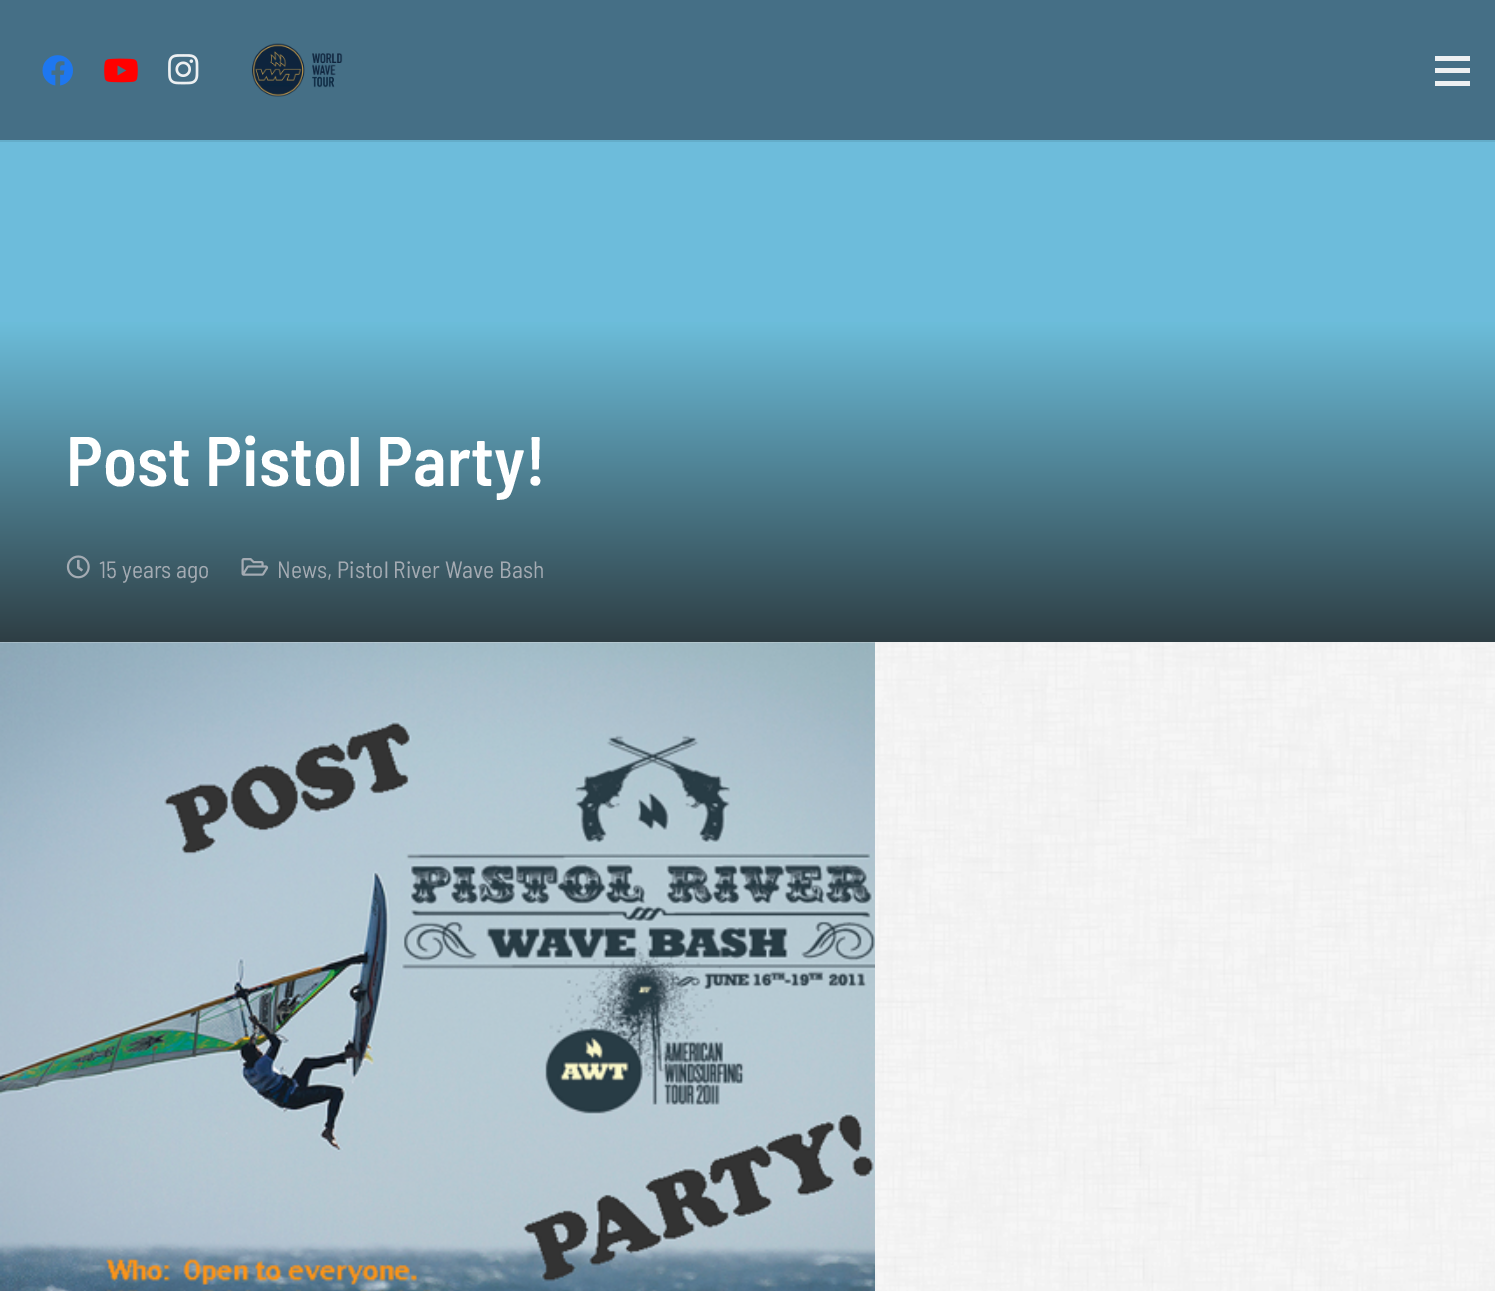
%!PS-Adobe-3.0
%%BoundingBox: 0 0 1495 1291
%%LanguageLevel: 3
%%Pages: 1
%%EndComments
%%BeginProlog
/m { moveto } bind def
/l { lineto } bind def
/h { closepath } bind def
/q { gsave } bind def
/Q { grestore } bind def
/fn { [ exch dup neg 0 0 3 -1 roll 0 0 ] selectfont } def
/tx { moveto show } def
/bx { rectfill } def
/im { 5 dict begin { /h /w /y /x /name } { exch def } forall
  gsave x y translate w h scale
  w h 8 [w 0 0 h 0 0] name (r) file false 3 colorimage grestore end } def
%%EndProlog
%%BeginSetup
<< /PageSize [1495 1291] >> setpagedevice
%%EndSetup
%%Page: 1 1
0 1291 translate 1 -1 scale
4 setmiterlimit
1 setgray
0 0 1495 1291 bx
(image0.raw) 0 642 1495 649 im
0.392 0.678 0.788 setrgbcolor
0 140 1495 2 bx
0.271 0.435 0.525 setrgbcolor
0 0 1495 140 bx
(image1.raw) 42 55 31 31 im
(image2.raw) 104 58 34 25 im
(image3.raw) 168 54 31 31 im
(image4.raw) 252 43 91 54 im
0.929 0.941 0.949 setrgbcolor
1435 68 35 5 bx
1435 56 35 5 bx
1435 81 35 5 bx
0.427 0.737 0.859 setrgbcolor
0 142 1495 180 bx
q 0 322 m 1495 322 l 1495 642 l 0 642 l h clip newpath
<< /ShadingType 2 /ColorSpace /DeviceRGB /Coords [748 322 748 642] /Extend [true true] /Function << /FunctionType 2 /Domain [0 1] /C0 [0.424 0.741 0.855] /C1 [0.18 0.243 0.267] /N 1 >> >> shfill Q
/BarlowSemiCondensed-SemiBold 70 fn
1 setgray
(Post Pistol Party!) 66 486 tx
(image5.raw) 66 555 24 24 im
/BarlowSemiCondensed-Regular 23.6 fn
0.643 0.671 0.702 setrgbcolor
(15 years ago) 99 578 tx
(image6.raw) 241 558 28 18 im
(News, Pistol River Wave Bash) 277 578 tx
(image7.raw) 0 642 875 649 im
showpage
%%EOF
